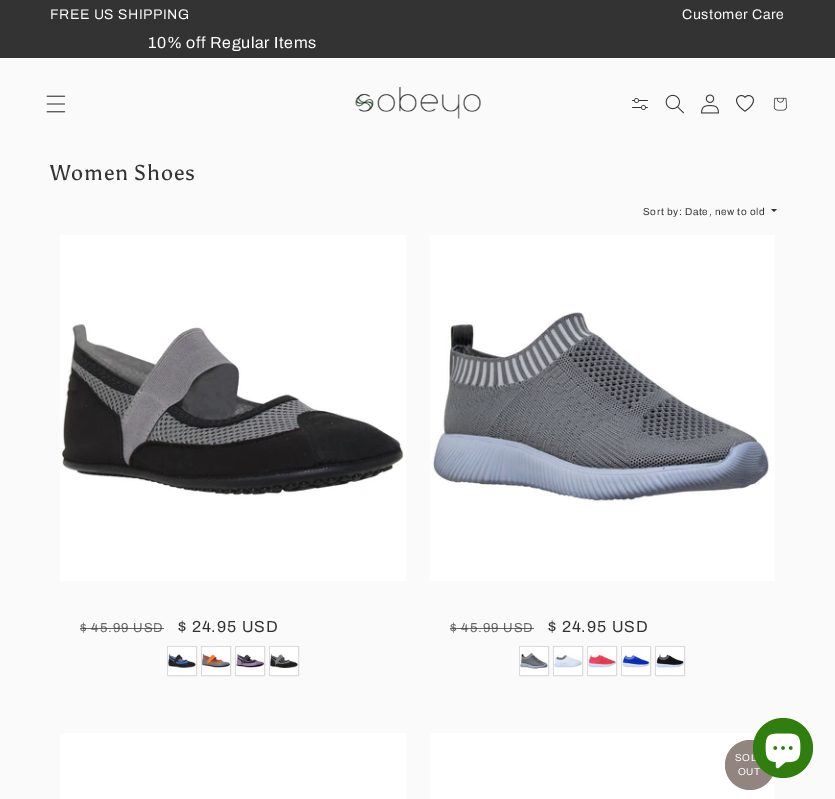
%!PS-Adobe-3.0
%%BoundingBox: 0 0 835 799
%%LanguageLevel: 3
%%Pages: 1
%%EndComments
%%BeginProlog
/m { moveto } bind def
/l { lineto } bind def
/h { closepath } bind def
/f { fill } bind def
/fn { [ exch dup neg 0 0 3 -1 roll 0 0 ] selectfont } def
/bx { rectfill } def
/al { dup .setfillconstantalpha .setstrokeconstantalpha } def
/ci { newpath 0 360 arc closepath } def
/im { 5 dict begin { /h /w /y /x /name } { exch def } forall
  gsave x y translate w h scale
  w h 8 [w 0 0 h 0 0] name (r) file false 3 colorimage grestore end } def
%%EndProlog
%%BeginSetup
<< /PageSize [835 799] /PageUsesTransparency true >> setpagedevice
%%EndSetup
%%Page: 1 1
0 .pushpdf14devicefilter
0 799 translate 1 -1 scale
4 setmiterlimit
0.98 setgray
0 0 835 799 bx
0.2 setgray
0 0 835 58 bx
/Archivo-Regular 14 fn
1 setgray
50 19 m 0.6 0 (FREE US SHIPPING) ashow
682 19 m 0.6 0 (Customer Care) ashow
/Archivo-Regular 16 fn
148 48 m 0.6 0 (10% off Regular Items) ashow
(image0.raw) 46 95 20 18 im
(image1.raw) 355 87 126 32 im
(image2.raw) 632 98 16 12 im
(image3.raw) 665 94 19 20 im
(image4.raw) 701 94 18 20 im
(image5.raw) 736 95 18 17 im
(image6.raw) 773 97 14 14 im
/Asul-Regular 21.5 fn
0.2 setgray
50 180 m 0.75 0 (Women Shoes) ashow
/Archivo-Regular 10 fn
643 215 m 0.6 0 (Sort by: Date, new to old) ashow
771 209 m 777 209 l 774 212 l h f
(image7.raw) 60 235 346 346 im
/Archivo-Regular 13 fn
0.396 setgray
80 632 m 1 0 ($ 45.99 USD) ashow
0.75 al
0.2 setgray
80 628 84 1 bx
/Archivo-Regular 16 fn
1 al
178 632 m 1 0 ($ 24.95 USD) ashow
0.859 setgray
167.5 646.5 29 29 rectstroke
(image8.raw) 168 647 28 28 im
201.5 646.5 29 29 rectstroke
(image9.raw) 202 647 28 28 im
235.5 646.5 29 29 rectstroke
(image10.raw) 236 647 28 28 im
269.5 646.5 29 29 rectstroke
(image11.raw) 270 647 28 28 im
(image12.raw) 430 235 345 346 im
/Archivo-Regular 13 fn
0.396 setgray
450 632 m 1 0 ($ 45.99 USD) ashow
0.75 al
0.2 setgray
450 628 84 1 bx
/Archivo-Regular 16 fn
1 al
548 632 m 1 0 ($ 24.95 USD) ashow
0.859 setgray
519.5 646.5 29 29 rectstroke
(image13.raw) 520 647 28 28 im
553.5 646.5 29 29 rectstroke
(image14.raw) 554 647 28 28 im
587.5 646.5 29 29 rectstroke
(image15.raw) 588 647 28 28 im
621.5 646.5 29 29 rectstroke
(image16.raw) 622 647 28 28 im
655.5 646.5 29 29 rectstroke
(image17.raw) 656 647 28 28 im
1 setgray
60 733 346 66 bx
430 733 345 66 bx
0.573 0.518 0.498 setrgbcolor
750 765 25 ci f
/Archivo-Regular 10 fn
1 setgray
735 761 m 0.6 0 (SOL) ashow
738 775 m 0.6 0 (OUT) ashow
0.188 0.494 0.051 setrgbcolor
783 748 30 ci f
(image18.raw) 765 733 36 36 im
.poppdf14devicefilter showpage
%%EOF
